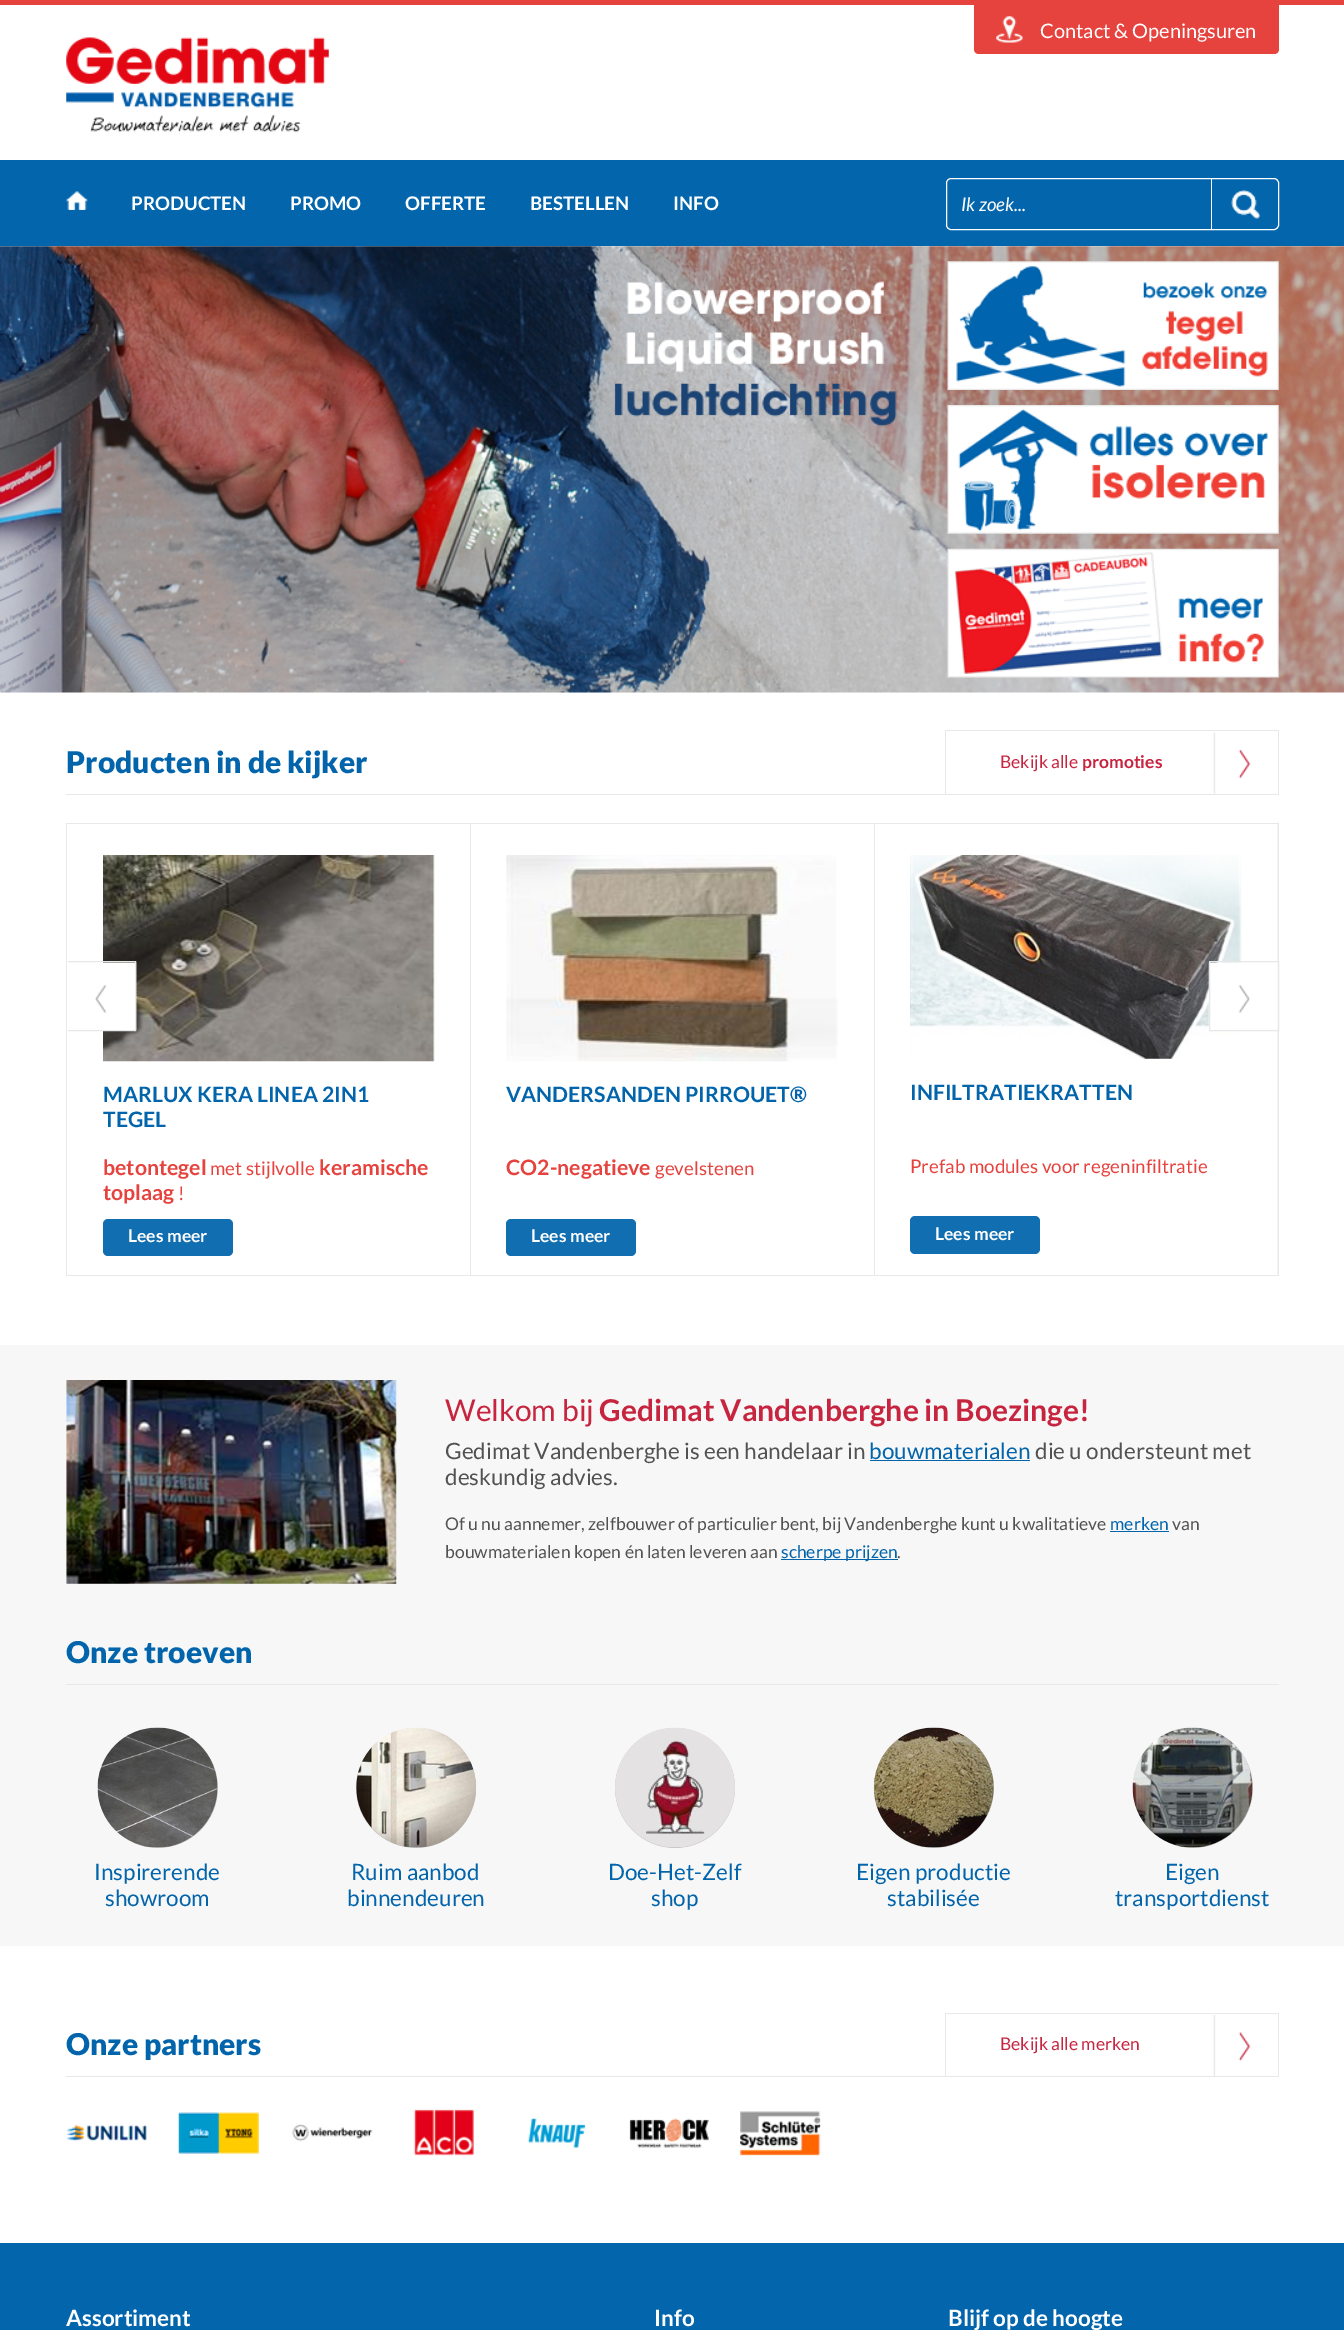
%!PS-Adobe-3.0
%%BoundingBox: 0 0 1344 2330
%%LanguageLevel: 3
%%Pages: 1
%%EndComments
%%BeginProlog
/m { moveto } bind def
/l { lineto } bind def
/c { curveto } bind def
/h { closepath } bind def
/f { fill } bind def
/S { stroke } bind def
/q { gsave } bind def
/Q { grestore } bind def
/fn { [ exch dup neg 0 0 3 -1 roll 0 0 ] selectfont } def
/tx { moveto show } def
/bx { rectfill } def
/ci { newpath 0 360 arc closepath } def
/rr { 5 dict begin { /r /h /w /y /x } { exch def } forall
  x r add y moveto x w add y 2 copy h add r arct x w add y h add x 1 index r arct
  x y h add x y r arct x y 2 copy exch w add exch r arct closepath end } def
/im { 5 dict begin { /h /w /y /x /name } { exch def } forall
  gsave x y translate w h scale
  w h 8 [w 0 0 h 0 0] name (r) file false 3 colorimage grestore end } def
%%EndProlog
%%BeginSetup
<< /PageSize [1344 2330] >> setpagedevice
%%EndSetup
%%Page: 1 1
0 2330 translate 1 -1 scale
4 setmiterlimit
1 setgray
0 0 1344 2330 bx
0.902 0.263 0.243 setrgbcolor
0 0 1344 5 bx
974 5 m 1279 5 l 1279 49 l 1279 52 1277 54 1274 54 c 979 54 l 976 54 974 52 974 49 c h f
(image0.raw) 996 16 27 27 im
/Lato-Regular 20 fn
1 setgray
(Contact & Openingsuren) 1040 38 tx
(image1.raw) 66 37 263 95 im
0.012 0.396 0.675 setrgbcolor
0 160 1344 86 bx
(image2.raw) 66 191 22 19 im
/Lato-Bold 18.75 fn
1 setgray
(PRODUCTEN) 131 210 tx
(PROMO) 290 210 tx
(OFFERTE) 405 210 tx
(BESTELLEN) 530 210 tx
(INFO) 673 210 tx
946.5 178.5 332 51 4.5 rr S
/Lato-Italic 18.75 fn
(Ik zoek...) 961 211 tx
(image3.raw) 1231 190 29 29 im
1211 179 1 50 bx
(image4.raw) 0 246 1344 447 im
(image5.raw) 947 261 332 129 im
(image6.raw) 947 405 332 129 im
(image7.raw) 947 548 332 130 im
0.91 setgray
66 794 1213 1 bx
/Lato-Black 30 fn
0.008 0.396 0.675 setrgbcolor
(Producten in de kijker) 66 773 tx
(image8.raw) 1213 732 38 62 im
0.91 setgray
945 730 334 1 bx
1278 730 1 64 bx
945 730 1 64 bx
/Lato-Regular 17.5 fn
0.78 0.141 0.247 setrgbcolor
(Bekijk alle) 1000 768 tx
/Lato-Bold 17.5 fn
(promoties) 1082 768 tx
(image9.raw) 1277 822 2 453 im
0.91 setgray
66 823 1213 1 bx
66 1275 1213 1 bx
66 823 1 453 bx
(image12.raw) 103 855 332 207 im
(image10.raw) 95 962 42 68 im
q
68 824 1211 451 rectclip
66.5 961.5 69 69 rectstroke
Q
(image14.raw) 910 855 332 204 im
(image11.raw) 1208 962 70 68 im
1278 824 1 449 bx
1209.5 961.5 69 69 rectstroke
470 824 1 451 bx
/Lato-Bold 21.25 fn
0.008 0.396 0.675 setrgbcolor
(MARLUX KERA LINEA 2IN1) 103 1102 tx
(TEGEL) 103 1127 tx
0.902 0.263 0.243 setrgbcolor
(betontegel) 103 1175 tx
/Lato-Regular 18.75 fn
(met stijlvolle) 210 1175 tx
/Lato-Bold 21.25 fn
(keramische) 319 1175 tx
(toplaag) 103 1200 tx
/Lato-Regular 18.75 fn
(!) 178 1200 tx
0.067 0.431 0.694 setrgbcolor
103 1219 130 37 5 rr f
/Lato-Bold 17.5 fn
1 setgray
(Lees meer) 128 1242 tx
0.91 setgray
874 824 1 451 bx
(image13.raw) 506 855 332 207 im
/Lato-Bold 21.25 fn
0.008 0.396 0.675 setrgbcolor
(VANDERSANDEN PIRROUET®) 506 1102 tx
0.902 0.263 0.243 setrgbcolor
(CO2-negatieve) 506 1175 tx
/Lato-Regular 18.75 fn
(gevelstenen) 655 1175 tx
0.067 0.431 0.694 setrgbcolor
506 1219 130 37 5 rr f
/Lato-Bold 17.5 fn
1 setgray
(Lees meer) 531 1242 tx
/Lato-Bold 21.25 fn
0.008 0.396 0.675 setrgbcolor
(INFILTRATIEKRATTEN) 910 1100 tx
/Lato-Regular 18.75 fn
0.902 0.263 0.243 setrgbcolor
(Prefab modules voor regeninfiltratie) 910 1173 tx
0.067 0.431 0.694 setrgbcolor
910 1216 130 38 5 rr f
/Lato-Bold 17.5 fn
1 setgray
(Lees meer) 935 1240 tx
0.969 setgray
0 1345 1344 601 bx
(image15.raw) 66 1380 331 204 im
/Lato-Regular 30 fn
0.78 0.141 0.247 setrgbcolor
(Welkom bij) 445 1421 tx
/Lato-Bold 30 fn
(Gedimat Vandenberghe in Boezinge!) 599 1421 tx
/Lato-Regular 22.5 fn
0.322 setgray
(Gedimat Vandenberghe is een handelaar in) 445 1459 tx
0.008 0.396 0.675 setrgbcolor
(bouwmaterialen) 869 1459 tx
870 1460 160 1 bx
0.322 setgray
(die u ondersteunt met) 1035 1459 tx
(deskundig advies.) 445 1485 tx
/Lato-Regular 17.5 fn
(Of u nu aannemer, zelfbouwer of particulier bent, bij Vandenberghe kunt u kwalitatieve) 445 1530 tx
0.008 0.396 0.675 setrgbcolor
(merken) 1110 1530 tx
1110 1531 59 1 bx
0.322 setgray
(van) 1172 1530 tx
(bouwmaterialen kopen én laten leveren aan) 445 1558 tx
0.008 0.396 0.675 setrgbcolor
781 1559 117 1 bx
(scherpe prijzen) 781 1558 tx
0.322 setgray
(.) 897 1558 tx
0.91 setgray
66 1684 1213 1 bx
/Lato-Black 30 fn
0.008 0.396 0.675 setrgbcolor
(Onze troeven) 66 1663 tx
0.749 setgray
158 1788 60 ci f
(image16.raw) 97 1727 121 121 im
/Lato-Regular 22.5 fn
0.008 0.396 0.675 setrgbcolor
(Inspirerende) 94 1880 tx
(showroom) 105 1906 tx
0.749 setgray
416 1788 60 ci f
(image17.raw) 356 1727 121 121 im
0.008 0.396 0.675 setrgbcolor
(Ruim aanbod) 351 1880 tx
(binnendeuren) 347 1906 tx
0.749 setgray
675 1788 60 ci f
(image18.raw) 615 1727 120 121 im
0.008 0.396 0.675 setrgbcolor
(Doe-Het-Zelf) 608 1880 tx
(shop) 651 1906 tx
0.749 setgray
934 1788 60 ci f
(image19.raw) 873 1727 121 121 im
0.008 0.396 0.675 setrgbcolor
(Eigen productie) 856 1880 tx
(stabilisée) 887 1906 tx
0.749 setgray
1193 1788 60 ci f
(image20.raw) 1132 1727 121 121 im
0.008 0.396 0.675 setrgbcolor
(Eigen) 1165 1880 tx
(transportdienst) 1115 1906 tx
0.91 setgray
66 2076 1213 1 bx
/Lato-Black 30 fn
0.008 0.396 0.675 setrgbcolor
(Onze partners) 66 2055 tx
(image21.raw) 1213 2015 38 61 im
0.91 setgray
945 2013 334 1 bx
1278 2013 1 63 bx
945 2013 1 63 bx
/Lato-Regular 17.5 fn
0.78 0.141 0.247 setrgbcolor
(Bekijk alle merken) 1000 2050 tx
(image22.raw) 66 2124 81 18 im
(image23.raw) 178 2112 81 42 im
(image24.raw) 292 2124 81 18 im
(image25.raw) 413 2109 61 47 im
(image26.raw) 528 2118 58 31 im
(image27.raw) 629 2118 80 30 im
(image28.raw) 740 2111 81 45 im
0.012 0.396 0.675 setrgbcolor
0 2243 1344 87 bx
/Lato-Bold 22.5 fn
1 setgray
(Assortiment) 66 2326 tx
(Info) 654 2326 tx
(Blijf op de hoogte) 948 2326 tx
showpage
%%EOF
